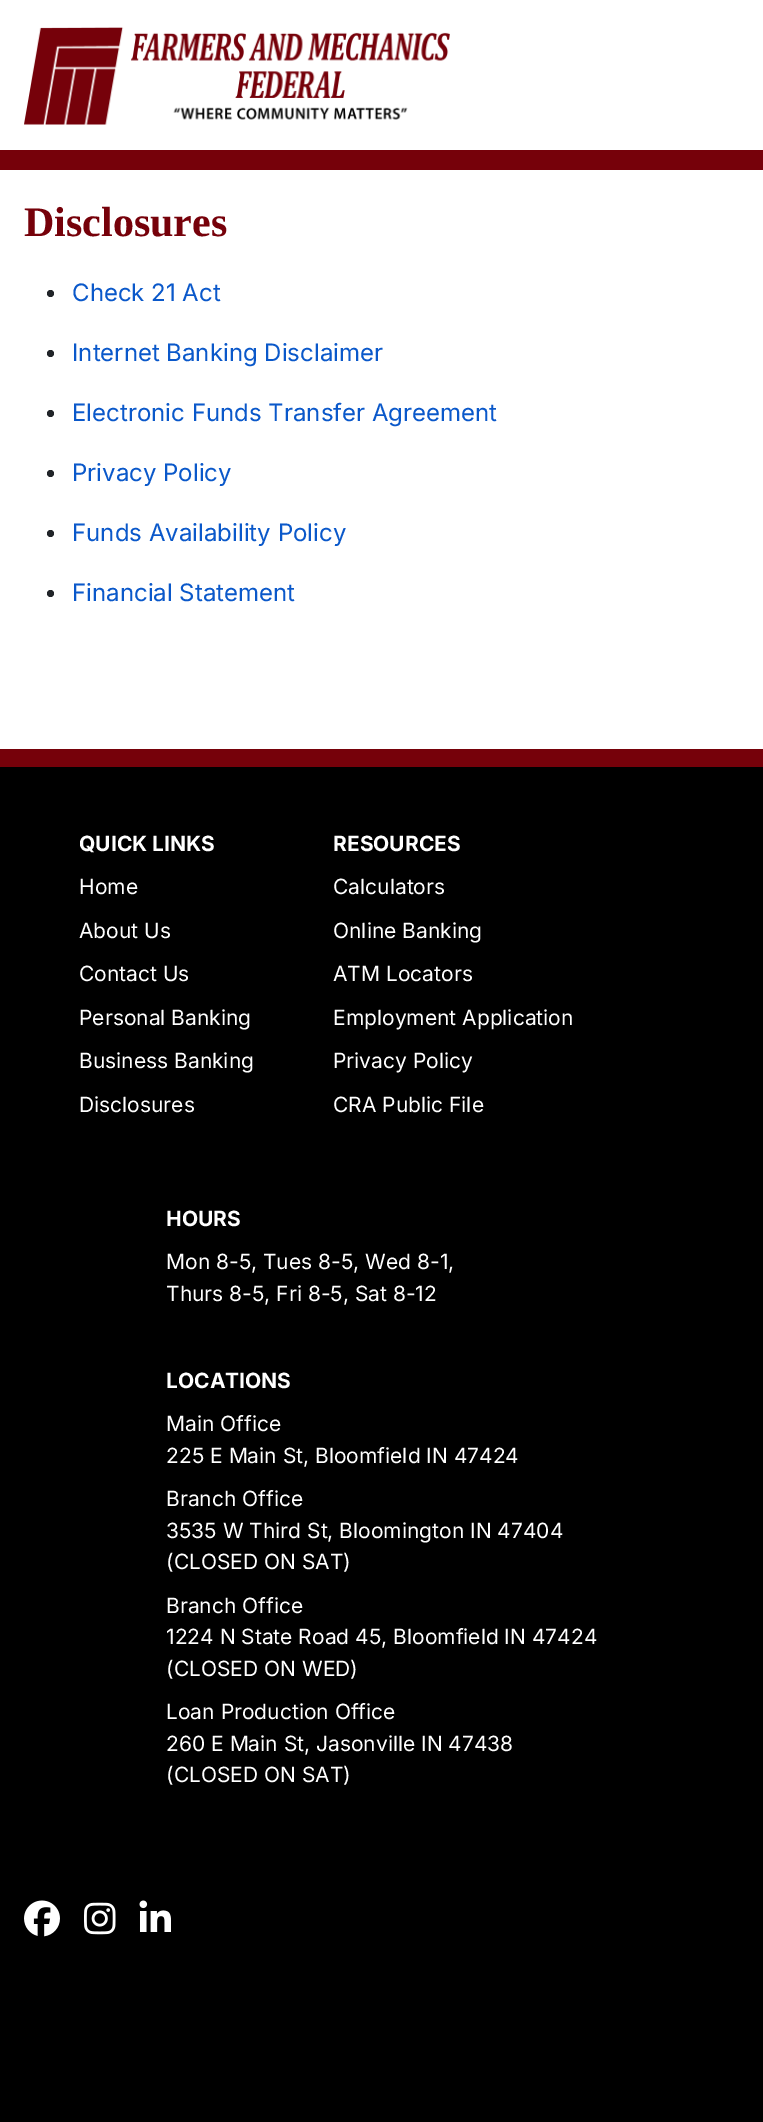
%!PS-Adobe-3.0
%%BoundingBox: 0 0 763 2122
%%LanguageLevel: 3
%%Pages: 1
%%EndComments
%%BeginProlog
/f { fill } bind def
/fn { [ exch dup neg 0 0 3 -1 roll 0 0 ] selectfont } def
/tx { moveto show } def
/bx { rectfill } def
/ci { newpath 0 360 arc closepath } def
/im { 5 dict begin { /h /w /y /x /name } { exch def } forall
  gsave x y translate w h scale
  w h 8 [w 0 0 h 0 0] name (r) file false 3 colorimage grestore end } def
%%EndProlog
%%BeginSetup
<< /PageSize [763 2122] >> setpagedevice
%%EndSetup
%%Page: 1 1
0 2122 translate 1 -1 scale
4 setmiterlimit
1 setgray
0 0 763 2122 bx
(image0.raw) 24 27 426 98 im
0.463 0.004 0.039 setrgbcolor
0 150 763 20 bx
/LiberationSerif-Bold 42 fn
(Disclosures) 24 236 tx
0.129 0.145 0.161 setrgbcolor
50.5 293.5 3.5 ci f
/Inter-Regular 24 fn
0.039 0.345 0.792 setrgbcolor
(Check 21 Act) 72 301 tx
0.129 0.145 0.161 setrgbcolor
50.5 353.5 3.5 ci f
0.039 0.345 0.792 setrgbcolor
(Internet Banking Disclaimer) 72 361 tx
0.129 0.145 0.161 setrgbcolor
50.5 413.5 3.5 ci f
0.039 0.345 0.792 setrgbcolor
(Electronic Funds Transfer Agreement) 72 421 tx
0.129 0.145 0.161 setrgbcolor
50.5 473.5 3.5 ci f
0.039 0.345 0.792 setrgbcolor
(Privacy Policy) 72 481 tx
0.129 0.145 0.161 setrgbcolor
50.5 533.5 3.5 ci f
0.039 0.345 0.792 setrgbcolor
(Funds Availability Policy) 72 541 tx
0.129 0.145 0.161 setrgbcolor
50.5 593.5 3.5 ci f
0.039 0.345 0.792 setrgbcolor
(Financial Statement) 72 601 tx
0 setgray
0 767 763 1355 bx
0.463 0.004 0.039 setrgbcolor
0 749 763 18 bx
/Inter-Bold 21 fn
1 setgray
(QUICK LINKS) 79 851 tx
/Inter-Regular 21 fn
(Home) 79 894 tx
(About Us) 79 938 tx
(Contact Us) 79 981 tx
(Personal Banking) 79 1025 tx
(Business Banking) 79 1068 tx
(Disclosures) 79 1112 tx
/Inter-Bold 21 fn
(RESOURCES) 333 851 tx
/Inter-Regular 21 fn
(Calculators) 333 894 tx
(Online Banking) 333 938 tx
(ATM Locators) 333 981 tx
(Employment Application) 333 1025 tx
(Privacy Policy) 333 1068 tx
(CRA Public File) 333 1112 tx
/Inter-Bold 21 fn
(HOURS) 166 1226 tx
/Inter-Regular 21 fn
(Mon 8-5, Tues 8-5, Wed 8-1,) 166 1269 tx
(Thurs 8-5, Fri 8-5, Sat 8-12) 166 1301 tx
/Inter-Bold 21 fn
(LOCATIONS) 166 1388 tx
/Inter-Regular 21 fn
(Main Office) 166 1431 tx
(225 E Main St, Bloomfield IN 47424) 166 1463 tx
(Branch Office) 166 1506 tx
(3535 W Third St, Bloomington IN 47404) 166 1538 tx
(\(CLOSED ON SAT\)) 166 1569 tx
(Branch Office) 166 1613 tx
(1224 N State Road 45, Bloomfield IN 47424) 166 1644 tx
(\(CLOSED ON WED\)) 166 1676 tx
(Loan Production Office) 166 1719 tx
(260 E Main St, Jasonville IN 47438) 166 1751 tx
(\(CLOSED ON SAT\)) 166 1782 tx
(image1.raw) 24 1900 36 37 im
(image2.raw) 84 1902 32 33 im
(image3.raw) 139 1900 32 32 im
showpage
%%EOF
